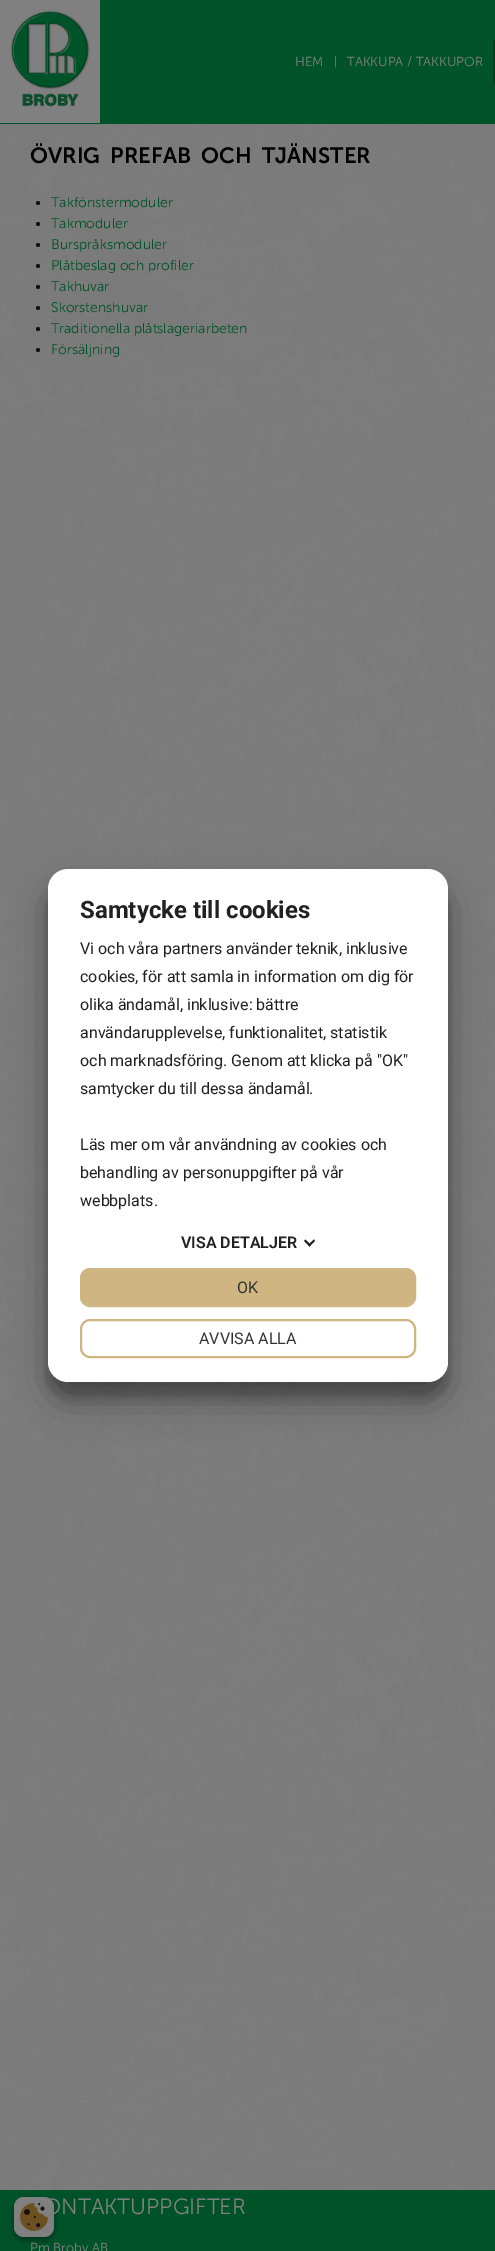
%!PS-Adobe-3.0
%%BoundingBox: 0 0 495 2251
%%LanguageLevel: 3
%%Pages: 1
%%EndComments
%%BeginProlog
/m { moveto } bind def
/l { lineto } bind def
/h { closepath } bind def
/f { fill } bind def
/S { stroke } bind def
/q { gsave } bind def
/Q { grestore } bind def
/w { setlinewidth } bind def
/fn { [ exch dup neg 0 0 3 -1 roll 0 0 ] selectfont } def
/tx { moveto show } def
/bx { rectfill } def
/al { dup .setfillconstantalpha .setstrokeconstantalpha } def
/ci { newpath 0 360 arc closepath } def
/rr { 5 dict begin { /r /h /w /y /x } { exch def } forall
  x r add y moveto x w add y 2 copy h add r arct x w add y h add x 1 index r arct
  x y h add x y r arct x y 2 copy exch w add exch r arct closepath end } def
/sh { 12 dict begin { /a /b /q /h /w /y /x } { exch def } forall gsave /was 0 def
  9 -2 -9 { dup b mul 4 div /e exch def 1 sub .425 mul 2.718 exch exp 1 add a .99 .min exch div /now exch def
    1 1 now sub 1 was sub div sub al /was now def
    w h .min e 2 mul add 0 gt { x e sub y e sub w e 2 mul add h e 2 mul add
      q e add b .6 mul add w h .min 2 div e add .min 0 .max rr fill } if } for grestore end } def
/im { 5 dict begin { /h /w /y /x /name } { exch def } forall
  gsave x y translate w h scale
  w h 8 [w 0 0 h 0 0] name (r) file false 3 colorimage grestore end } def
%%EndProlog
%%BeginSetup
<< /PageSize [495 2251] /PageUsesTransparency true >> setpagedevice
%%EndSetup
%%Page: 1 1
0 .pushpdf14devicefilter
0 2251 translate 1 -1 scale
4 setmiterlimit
1 setgray
0 0 495 2251 bx
(image0.raw) 0 124 495 2066 im
0 0.325 0.157 setrgbcolor
0 0 495 124 bx
0.502 setgray
0 0 100 123 bx
(image1.raw) 10 10 80 97 im
(image2.raw) 335 56 1 12 im
/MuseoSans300-Light 13 fn
(HEM) 295 66 tx
(TAKKUPA / TAKKUPOR) 347 66 tx
0.027 0.235 0.122 setrgbcolor
493 40 2 44 bx
/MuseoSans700-SemiBold 22 fn
0 setgray
30 163 m 5 0 32 (ÖVRIG PREFAB OCH TJÄNSTER) widthshow
0.067 setgray
38 203 2 ci f
/MuseoSans300-Light 14 fn
0 0.325 0.157 setrgbcolor
(Takfönstermoduler) 51 207 tx
0.067 setgray
38 224 2 ci f
0 0.325 0.157 setrgbcolor
(Takmoduler) 51 228 tx
0.067 setgray
38 245 2 ci f
0 0.325 0.157 setrgbcolor
(Burspråksmoduler) 51 249 tx
0.067 setgray
38 266 2 ci f
0 0.325 0.157 setrgbcolor
(Plåtbeslag och profiler) 51 270 tx
0.067 setgray
38 287 2 ci f
0 0.325 0.157 setrgbcolor
(Takhuvar) 51 291 tx
0.067 setgray
38 308 2 ci f
0 0.325 0.157 setrgbcolor
(Skorstenshuvar) 51 312 tx
0.067 setgray
38 329 2 ci f
0 0.325 0.157 setrgbcolor
(Traditionella plåtslageriarbeten) 51 333 tx
0.067 setgray
38 350 2 ci f
0 0.325 0.157 setrgbcolor
(Försäljning) 51 354 tx
0 setgray
48 884 400 513 20 6 0.22 sh
48 888 400 513 20 19 0.3 sh
1 setgray
48 869 400 513 20 rr f
/Roboto-Bold 24 fn
0.129 setgray
(Samtycke till cookies) 80 918 tx
/Roboto-Regular 16 fn
(Vi och våra partners använder teknik, inklusive) 80 954 tx
(cookies, för att samla in information om dig för) 80 982 tx
(olika ändamål, inklusive: bättre) 80 1010 tx
(användarupplevelse, funktionalitet, statistik) 80 1038 tx
(och marknadsföring. Genom att klicka på "OK") 80 1066 tx
(samtycker du till dessa ändamål.) 80 1094 tx
(Läs mer om vår användning av cookies och) 80 1150 tx
(behandling av personuppgifter på vår) 80 1178 tx
(webbplats.) 80 1206 tx
/Roboto-SemiBold 16 fn
(VISA DETALJER) 181 1248 tx
314 1239.5 m 315 1241 l 309.5 1246.5 l 308 1245 l h f
305.5 1239.5 m 311 1245 l 309.5 1246.5 l 304 1241 l h f
0.808 0.71 0.51 setrgbcolor
81 1269 334 37 9 rr q f Q
2 w
S
/Roboto-Regular 16 fn
0.2 setgray
(OK) 237 1293 tx
0.808 0.71 0.51 setrgbcolor
81 1320 334 37 9 rr S
0.2 setgray
(AVVISA ALLA) 199 1344 tx
0 0.325 0.157 setrgbcolor
0 2190 495 61 bx
0 setgray
14 2200 40 40 10 3 0.23 sh
14 2200 40 40 10 3 0.16 sh
0.502 setgray
14 2197 40 40 10 rr f
/MuseoSans300-Light 22 fn
(ONTAKTUPPGIFTER) 43 2214 tx
(image3.raw) 20 2203 28 28 im
/MuseoSans300-Light 13 fn
(Pm Broby AB) 30 2252 tx
.poppdf14devicefilter showpage
%%EOF
